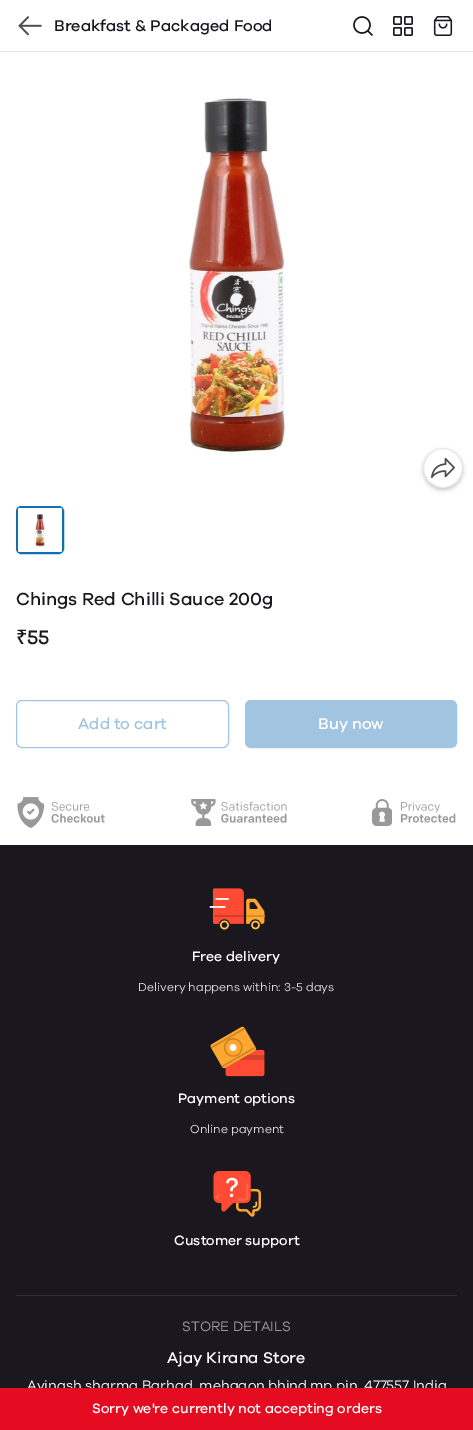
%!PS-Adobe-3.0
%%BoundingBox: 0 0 473 1430
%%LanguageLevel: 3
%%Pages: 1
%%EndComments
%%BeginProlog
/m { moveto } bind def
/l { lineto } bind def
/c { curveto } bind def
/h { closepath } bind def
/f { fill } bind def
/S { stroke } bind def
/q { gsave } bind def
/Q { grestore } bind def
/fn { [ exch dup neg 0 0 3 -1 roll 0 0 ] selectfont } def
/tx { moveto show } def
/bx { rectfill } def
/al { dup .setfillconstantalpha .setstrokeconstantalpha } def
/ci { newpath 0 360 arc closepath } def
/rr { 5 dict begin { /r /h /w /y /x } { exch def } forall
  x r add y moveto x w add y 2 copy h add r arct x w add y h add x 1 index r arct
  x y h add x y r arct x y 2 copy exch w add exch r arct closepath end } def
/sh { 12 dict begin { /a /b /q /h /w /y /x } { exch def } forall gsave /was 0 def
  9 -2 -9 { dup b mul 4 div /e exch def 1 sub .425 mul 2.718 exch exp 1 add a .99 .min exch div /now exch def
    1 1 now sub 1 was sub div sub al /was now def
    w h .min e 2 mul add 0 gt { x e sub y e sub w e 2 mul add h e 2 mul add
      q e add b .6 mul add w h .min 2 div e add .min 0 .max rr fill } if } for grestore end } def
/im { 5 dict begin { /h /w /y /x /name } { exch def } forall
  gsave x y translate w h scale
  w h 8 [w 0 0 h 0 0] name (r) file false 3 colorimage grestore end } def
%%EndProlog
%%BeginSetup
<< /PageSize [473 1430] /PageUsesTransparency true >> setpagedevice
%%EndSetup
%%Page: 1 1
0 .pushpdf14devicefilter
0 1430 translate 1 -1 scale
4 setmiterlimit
1 setgray
0 0 473 1430 bx
0.902 setgray
0 51 473 1 bx
(image0.raw) 18 16 24 20 im
/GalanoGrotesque-Medium 16 fn
0.102 0.094 0.118 setrgbcolor
(Breakfast & Packaged Food) 54 31 tx
(image1.raw) 353 16 20 20 im
(image2.raw) 393 16 20 20 im
(image3.raw) 433 16 20 20 im
(image4.raw) 189 98 96 355 im
423 450 40 40 20 2 0.24 sh
1 setgray
443 468 19.5 ci q f Q
0.902 setgray
S
(image5.raw) 431 457 24 22 im
0.078 0.431 0.706 setrgbcolor
16.5 506.5 47 47 4.5 rr S
17 511 m 17 549 l 17 550 17 551 18 552 c 18 508 l h 21 507 m 18 508 l 62 508 l 59 507 l h 63 511 m 62 508 l 62 552 l 63 551 63 550 63 549 c h 59 553 m 62 552 l 18 552 l 19 553 20 553 21 553 c h eofill
(image6.raw) 35 513 10 34 im
/GalanoGrotesque-Medium 18 fn
0.102 0.094 0.118 setrgbcolor
(Chings Red Chilli Sauce 200g) 16 605 tx
/NotoSans-Medium 20 fn
(₹) 16 644 tx
/GalanoGrotesque-Medium 20 fn
(55) 27 644 tx
0.631 0.773 0.882 setrgbcolor
16.5 700.5 212 47 5.5 rr S
/GalanoGrotesque-Medium 16 fn
(Add to cart) 78 729 tx
245.5 700.5 211 47 5.5 rr q f Q
S
1 setgray
(Buy now) 318 729 tx
(image7.raw) 17 797 88 31 im
(image8.raw) 191 799 96 27 im
(image9.raw) 372 799 84 27 im
0.102 0.094 0.118 setrgbcolor
0 845 473 543 bx
(image10.raw) 209 888 56 42 im
/GalanoGrotesque-Medium 14 fn
1 setgray
(Free delivery) 192 961 tx
/GalanoGrotesque-Regular 12 fn
0.851 setgray
(Delivery happens within: 3-5 days) 138 991 tx
(image11.raw) 210 1026 55 51 im
/GalanoGrotesque-Medium 14 fn
1 setgray
(Payment options) 178 1103 tx
/GalanoGrotesque-Regular 12 fn
0.851 setgray
(Online payment) 190 1133 tx
(image12.raw) 213 1171 48 46 im
/GalanoGrotesque-Medium 14 fn
1 setgray
(Customer support) 174 1245 tx
0.192 0.184 0.208 setrgbcolor
16 1295 441 1 bx
/GalanoGrotesque-Regular 14 fn
0.6 setgray
(STORE DETAILS) 182 1331 tx
/GalanoGrotesque-Medium 16 fn
1 setgray
(Ajay Kirana Store) 167 1363 tx
/GalanoGrotesque-Regular 14 fn
(Avinash sharma Barhad, mehgaon,bhind,mp pin. 477557 India) 27 1390 tx
0.898 0.043 0.125 setrgbcolor
0 1388 473 42 bx
/GalanoGrotesque-Medium 14 fn
1 setgray
(Sorry we're currently not accepting orders) 92 1413 tx
.poppdf14devicefilter showpage
%%EOF
